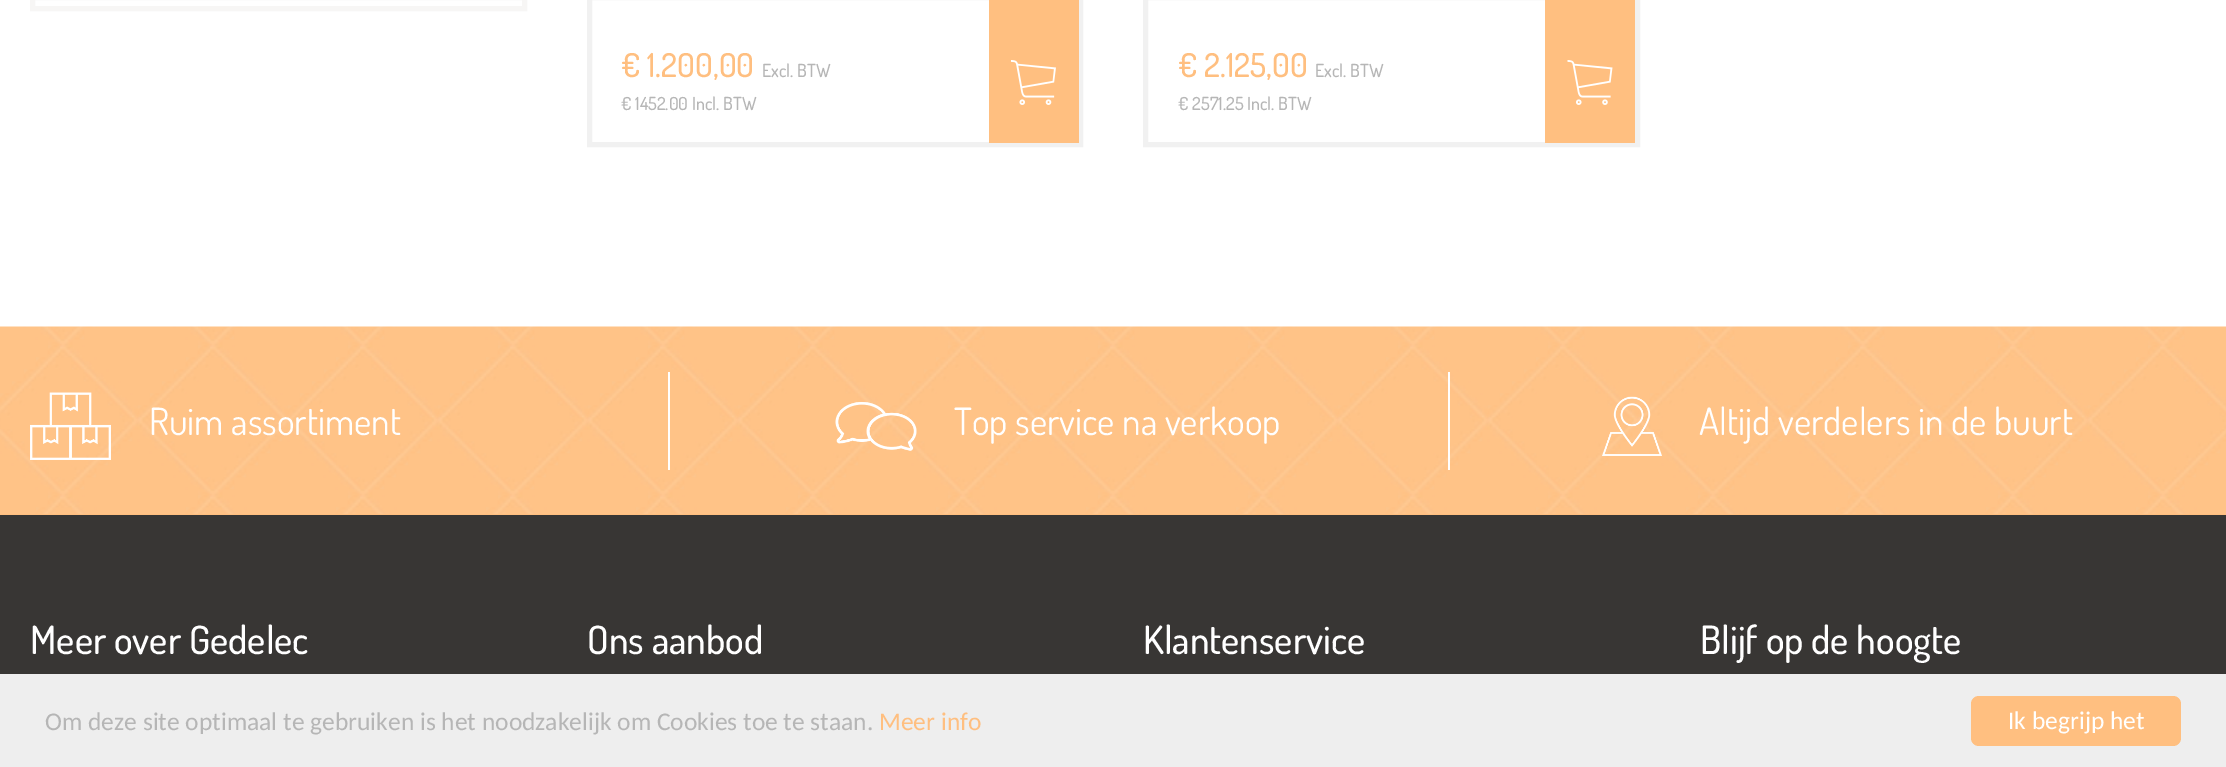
%!PS-Adobe-3.0
%%BoundingBox: 0 0 2226 767
%%LanguageLevel: 3
%%Pages: 1
%%EndComments
%%BeginProlog
/f { fill } bind def
/w { setlinewidth } bind def
/fn { [ exch dup neg 0 0 3 -1 roll 0 0 ] selectfont } def
/tx { moveto show } def
/bx { rectfill } def
/rr { 5 dict begin { /r /h /w /y /x } { exch def } forall
  x r add y moveto x w add y 2 copy h add r arct x w add y h add x 1 index r arct
  x y h add x y r arct x y 2 copy exch w add exch r arct closepath end } def
/im { 5 dict begin { /h /w /y /x /name } { exch def } forall
  gsave x y translate w h scale
  w h 8 [w 0 0 h 0 0] name (r) file false 3 colorimage grestore end } def
%%EndProlog
%%BeginSetup
<< /PageSize [2226 767] >> setpagedevice
%%EndSetup
%%Page: 1 1
0 767 translate 1 -1 scale
4 setmiterlimit
1 setgray
0 0 2226 767 bx
0.969 0.965 0.961 setrgbcolor
5 w
32.5 -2.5 492 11 rectstroke
0.945 setgray
589.5 -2.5 491 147 rectstroke
/Dosis-Medium 33 fn
1 0.749 0.502 setrgbcolor
(€ 1.200,00) 621 77 tx
/Dosis-Medium 18 fn
0.714 setgray
(Excl. BTW) 762 77 tx
(€ 1452.00 Incl. BTW) 621 110 tx
1 0.749 0.502 setrgbcolor
989 0 90 143 bx
(image0.raw) 1011 60 45 45 im
0.945 setgray
1145.5 -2.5 492 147 rectstroke
/Dosis-Medium 33 fn
1 0.749 0.502 setrgbcolor
(€ 2.125,00) 1178 77 tx
/Dosis-Medium 18 fn
0.714 setgray
(Excl. BTW) 1315 77 tx
(€ 2571.25 Incl. BTW) 1178 110 tx
1 0.749 0.502 setrgbcolor
1545 0 90 143 bx
(image1.raw) 1567 60 46 45 im
0 514 2226 1 bx
(image2.raw) 0 326 2226 188 im
(image3.raw) 30 392 81 68 im
/Dosis-Regular 37.5 fn
1 setgray
(Ruim assortiment) 149 435 tx
668 372 2 98 bx
(image4.raw) 835 402 82 49 im
(Top service na verkoop) 954 435 tx
1448 372 2 98 bx
(image5.raw) 1602 396 60 60 im
(Altijd verdelers in de buurt) 1699 435 tx
0.22 0.212 0.204 setrgbcolor
0 515 2226 159 bx
/Dosis-Medium 39 fn
1 setgray
(Meer over Gedelec) 30 654 tx
(Ons aanbod) 587 654 tx
(Klantenservice) 1143 654 tx
(Blijf op de hoogte) 1700 654 tx
0.933 setgray
0 674 2226 93 bx
/Carlito-Regular 25.5 fn
0.714 setgray
(Om deze site optimaal te gebruiken is het noodzakelijk om Cookies toe te staan.) 45 730 tx
1 0.749 0.502 setrgbcolor
(Meer info) 879 730 tx
1971 696 210 50 8 rr f
1 setgray
(Ik begrijp het) 2008 729 tx
showpage
%%EOF
